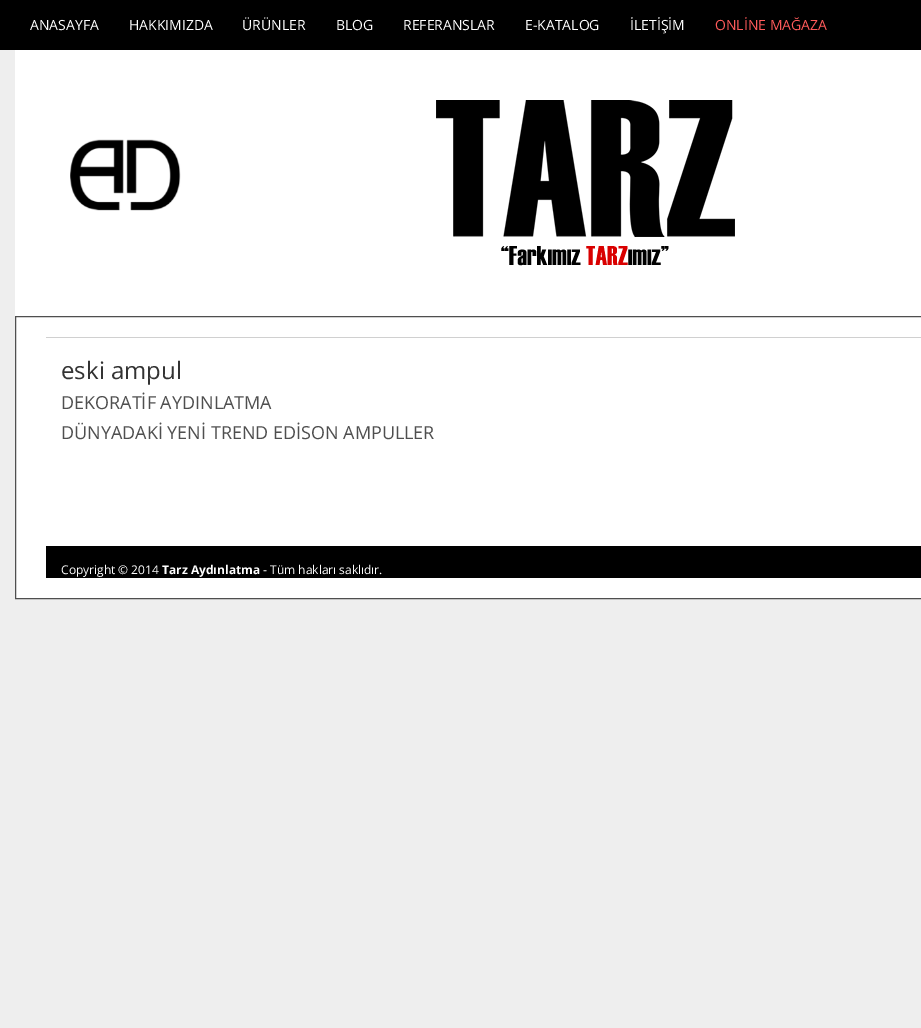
%!PS-Adobe-3.0
%%BoundingBox: 0 0 921 1028
%%LanguageLevel: 3
%%Pages: 1
%%EndComments
%%BeginProlog
/m { moveto } bind def
/l { lineto } bind def
/h { closepath } bind def
/f { fill } bind def
/S { stroke } bind def
/q { gsave } bind def
/Q { grestore } bind def
/fn { [ exch dup neg 0 0 3 -1 roll 0 0 ] selectfont } def
/tx { moveto show } def
/bx { rectfill } def
/im { 5 dict begin { /h /w /y /x /name } { exch def } forall
  gsave x y translate w h scale
  w h 8 [w 0 0 h 0 0] name (r) file false 3 colorimage grestore end } def
%%EndProlog
%%BeginSetup
<< /PageSize [921 1028] >> setpagedevice
%%EndSetup
%%Page: 1 1
0 1028 translate 1 -1 scale
4 setmiterlimit
0.933 setgray
0 0 921 1028 bx
0 setgray
0 0 921 50 bx
/OpenSans-Regular 14 fn
1 setgray
(ANASAYFA) 30 30 tx
(HAKKIMIZDA) 129 30 tx
(ÜRÜNLER) 242 30 tx
(BLOG) 336 30 tx
(REFERANSLAR) 403 30 tx
(E-KATALOG) 525 30 tx
(İLETİŞİM) 630 30 tx
1 0.357 0.357 setrgbcolor
(ONLİNE MAĞAZA) 715 30 tx
1 setgray
15 50 906 266 bx
(image0.raw) 70 139 111 72 im
(image1.raw) 436 100 299 166 im
15.5 316.5 m 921.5 316.5 l 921.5 598.5 l 15.5 598.5 l h q f Q
0.31 setgray
S
0.816 setgray
46 337 875 1 bx
/OpenSans-Regular 24 fn
0.2 setgray
(eski ampul) 61 379 tx
/OpenSans-Regular 18 fn
0.31 setgray
(DEKORATİF AYDINLATMA) 61 409 tx
(DÜNYADAKİ YENİ TREND EDİSON AMPULLER) 61 439 tx
0 setgray
46 546 875 32 bx
/OpenSans-Regular 12 fn
1 setgray
(Copyright © 2014) 61 574 tx
/OpenSans-Bold 12 fn
(Tarz Aydınlatma) 162 574 tx
/OpenSans-Regular 12 fn
(- Tüm hakları saklıdır.) 263 574 tx
showpage
%%EOF
